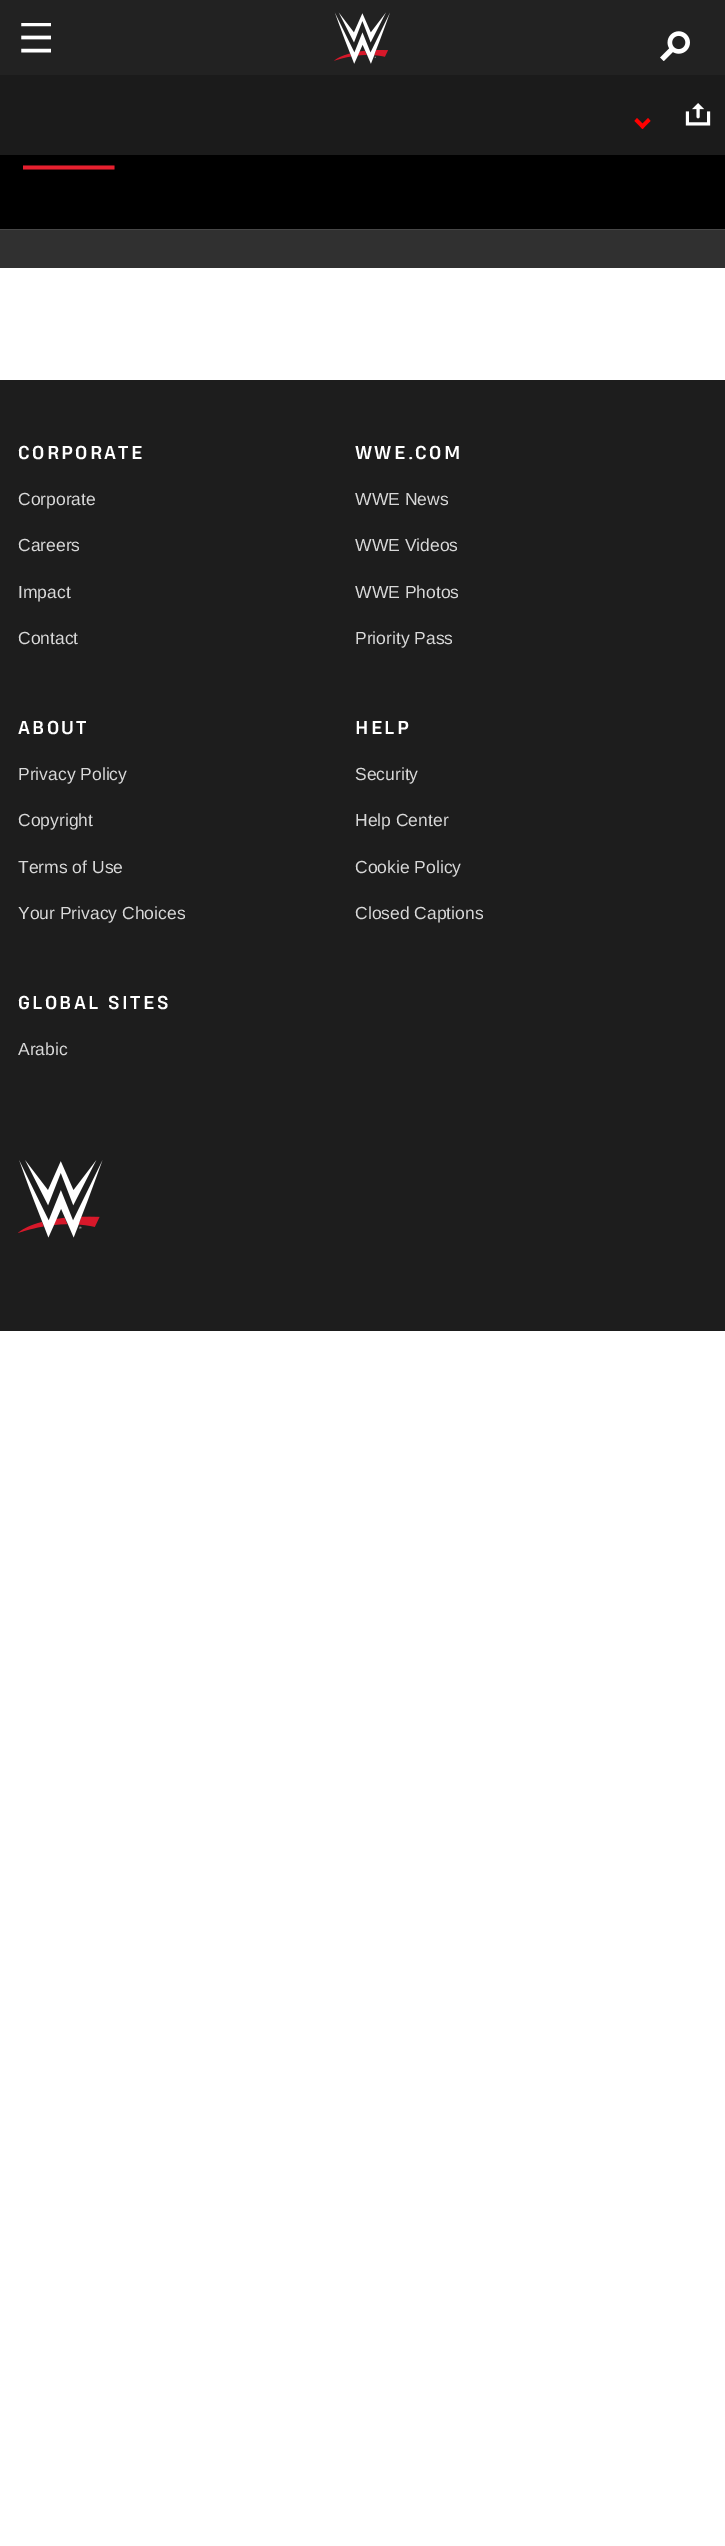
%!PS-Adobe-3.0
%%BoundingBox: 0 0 725 2546
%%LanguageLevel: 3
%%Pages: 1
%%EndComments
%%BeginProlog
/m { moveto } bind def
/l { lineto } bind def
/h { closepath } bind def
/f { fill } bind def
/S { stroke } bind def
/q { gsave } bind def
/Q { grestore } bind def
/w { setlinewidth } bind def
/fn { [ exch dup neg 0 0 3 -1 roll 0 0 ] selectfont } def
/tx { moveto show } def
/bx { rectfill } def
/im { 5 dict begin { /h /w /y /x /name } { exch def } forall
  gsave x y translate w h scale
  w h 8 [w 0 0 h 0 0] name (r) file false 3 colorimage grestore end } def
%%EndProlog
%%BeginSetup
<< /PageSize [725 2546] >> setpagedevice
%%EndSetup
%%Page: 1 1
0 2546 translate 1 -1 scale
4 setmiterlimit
1 setgray
0 0 725 2546 bx
0.133 setgray
0 0 725 75 bx
(image0.raw) 21 23 30 30 im
(image1.raw) 334 12 56 52 im
(image2.raw) 660 31 30 30 im
0.188 setgray
0 230 725 38 bx
0.106 setgray
0 75 725 80 bx
1 0 0 setrgbcolor
648 118 m 650.5 121 l 642.5 129 l 640 126 l h f
637 118 m 645 126 l 642.5 129 l 634.5 121 l h f
(image3.raw) 685 103 26 23 im
0 setgray
0 155 725 74 bx
0.278 setgray
0 229 725 1 bx
q
23 164 112 6 rectclip
0.906 0.125 0.184 setrgbcolor
3.8 w
2 167.5 m 114.5 167.5 l S
Q
0.114 setgray
0 380 725 951 bx
/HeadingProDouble-Bold 17.5 fn
1 setgray
18 459 m 2.25 0 (CORPORATE) ashow
/LiberationSans-Regular 17.5 fn
0.847 setgray
(Corporate) 18 505 tx
(Careers) 18 551 tx
(Impact) 18 598 tx
(Contact) 18 644 tx
/HeadingProDouble-Bold 17.5 fn
1 setgray
355 459 m 2.25 0 (WWE.COM) ashow
/LiberationSans-Regular 17.5 fn
0.847 setgray
(WWE News) 355 505 tx
(WWE Videos) 355 551 tx
(WWE Photos) 355 598 tx
(Priority Pass) 355 644 tx
/HeadingProDouble-Bold 17.5 fn
1 setgray
18 734 m 2.25 0 (ABOUT) ashow
/LiberationSans-Regular 17.5 fn
0.847 setgray
(Privacy Policy) 18 780 tx
(Copyright) 18 826 tx
(Terms of Use) 18 873 tx
(Your Privacy Choices) 18 919 tx
/HeadingProDouble-Bold 17.5 fn
1 setgray
355 734 m 2.25 0 (HELP) ashow
/LiberationSans-Regular 17.5 fn
0.847 setgray
(Security) 355 780 tx
(Help Center) 355 826 tx
(Cookie Policy) 355 873 tx
(Closed Captions) 355 919 tx
/HeadingProDouble-Bold 17.5 fn
1 setgray
18 1009 m 2.25 0 (GLOBAL SITES) ashow
/LiberationSans-Regular 17.5 fn
0.847 setgray
(Arabic) 18 1055 tx
(image4.raw) 18 1160 85 78 im
showpage
%%EOF
